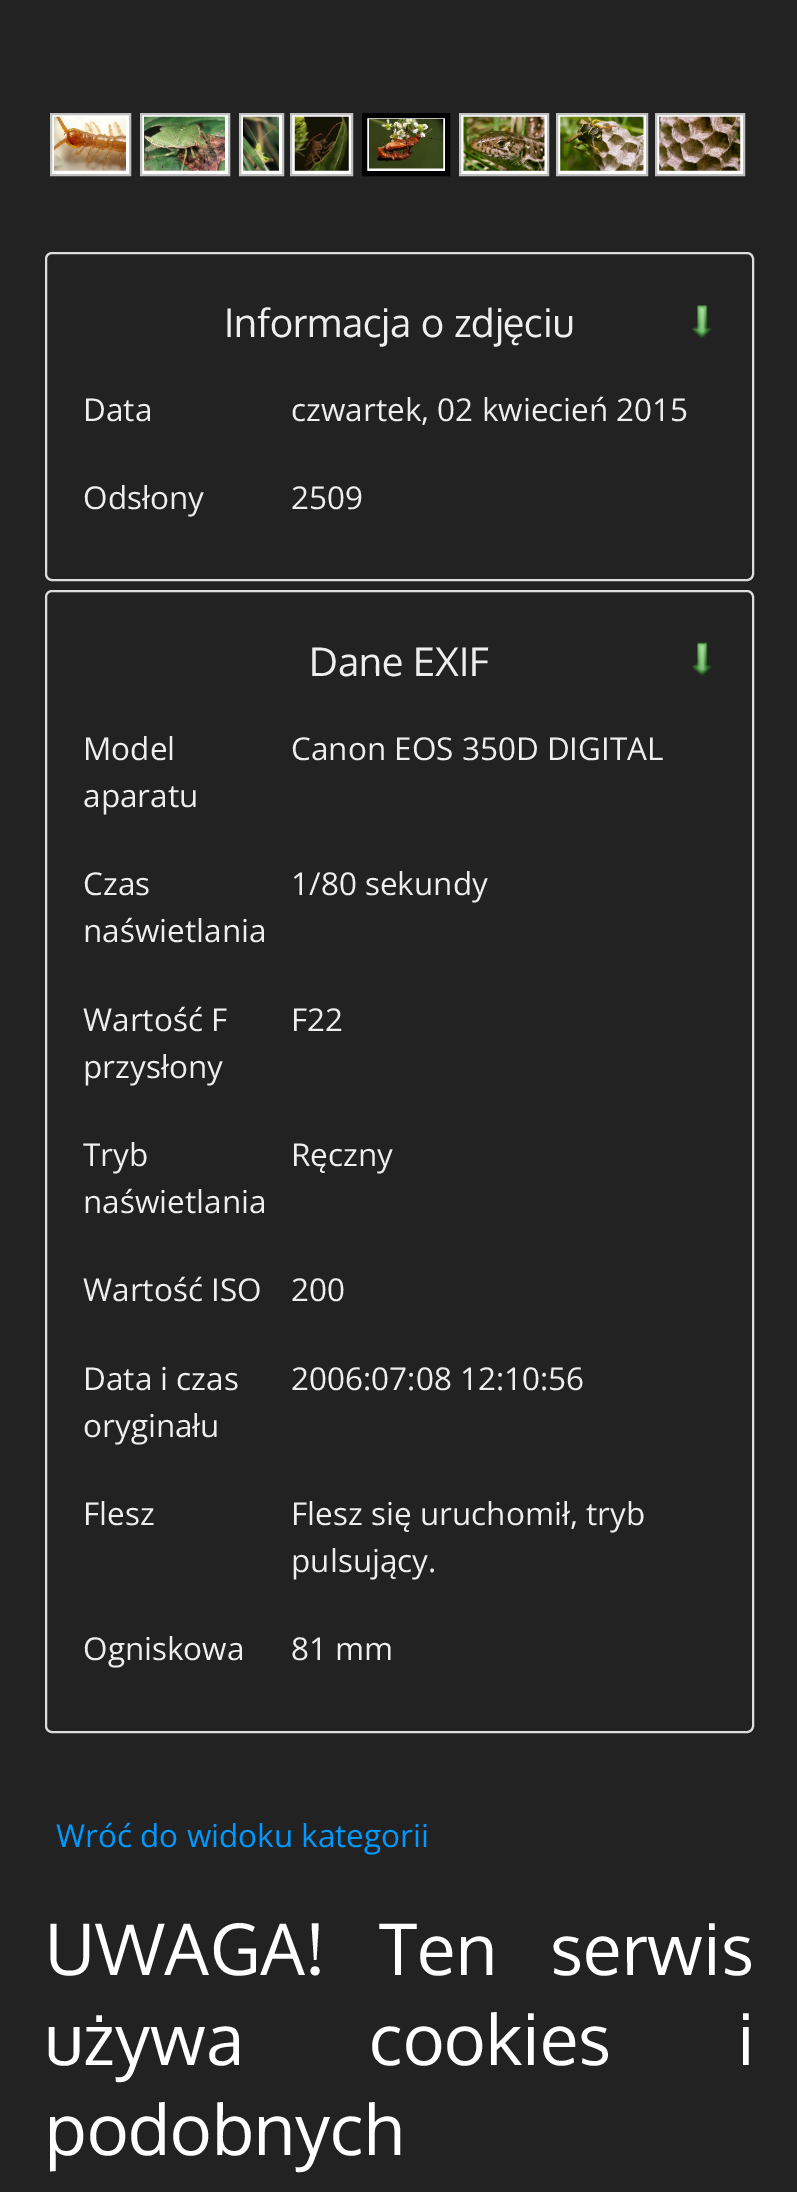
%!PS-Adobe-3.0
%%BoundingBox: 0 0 797 2192
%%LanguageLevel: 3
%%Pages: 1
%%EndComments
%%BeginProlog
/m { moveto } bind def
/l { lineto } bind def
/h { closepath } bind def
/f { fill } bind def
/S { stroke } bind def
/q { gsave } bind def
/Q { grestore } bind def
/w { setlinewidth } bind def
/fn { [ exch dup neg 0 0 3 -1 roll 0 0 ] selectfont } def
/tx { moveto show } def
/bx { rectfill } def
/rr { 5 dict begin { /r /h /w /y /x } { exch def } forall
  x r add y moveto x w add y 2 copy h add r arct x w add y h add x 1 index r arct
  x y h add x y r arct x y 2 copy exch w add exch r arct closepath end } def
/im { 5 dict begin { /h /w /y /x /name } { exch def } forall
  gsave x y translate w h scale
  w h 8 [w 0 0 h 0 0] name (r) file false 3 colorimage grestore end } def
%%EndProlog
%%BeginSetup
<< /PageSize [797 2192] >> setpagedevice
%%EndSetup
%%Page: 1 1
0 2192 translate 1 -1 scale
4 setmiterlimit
0.133 setgray
0 0 797 2192 bx
1 setgray
51 114 m 130 114 l 130 175 l 51 175 l h q f Q
0.753 setgray
2 w
S
(image0.raw) 54 116 72 55 im
1 setgray
141 114 m 229 114 l 229 175 l 141 175 l h q f Q
0.753 setgray
S
(image1.raw) 144 116 81 55 im
1 setgray
240 114 m 283 114 l 283 175 l 240 175 l h q f Q
0.753 setgray
S
(image2.raw) 243 116 36 55 im
1 setgray
291 114 m 352 114 l 352 175 l 291 175 l h q f Q
0.753 setgray
S
(image3.raw) 294 116 55 55 im
1 setgray
364.5 115.5 m 447.5 115.5 l 447.5 173.5 l 364.5 173.5 l h q f Q
0 setgray
5 w
S
(image4.raw) 369 119 75 50 im
1 setgray
460 114 m 548 114 l 548 175 l 460 175 l h q f Q
0.753 setgray
2 w
S
(image5.raw) 463 116 82 55 im
1 setgray
557 114 m 647 114 l 647 175 l 557 175 l h q f Q
0.753 setgray
S
(image6.raw) 560 116 84 55 im
1 setgray
656 114 m 744 114 l 744 175 l 656 175 l h q f Q
0.753 setgray
S
(image7.raw) 659 116 82 55 im
0.867 setgray
46 253 707 327 6 rr S
(image8.raw) 692 305 20 33 im
/Oxygen-Regular 39.4 fn
0.933 setgray
(Informacja o zdjęciu) 224 337 tx
/OpenSans-Regular 31.5 fn
(Data) 83 421 tx
(czwartek, 02 kwiecień 2015) 291 421 tx
(Odsłony) 83 509 tx
(2509) 291 509 tx
0.867 setgray
46 591 707 1141 6 rr S
(image9.raw) 692 642 20 34 im
/Oxygen-Regular 39.4 fn
0.933 setgray
(Dane EXIF) 309 676 tx
/OpenSans-Regular 31.5 fn
(Model) 83 760 tx
(aparatu) 83 807 tx
(Canon EOS 350D DIGITAL) 291 760 tx
(Czas) 83 895 tx
(naświetlania) 83 942 tx
(1/80 sekundy) 291 895 tx
(Wartość F) 83 1031 tx
(przysłony) 83 1078 tx
(F22) 291 1031 tx
(Tryb) 83 1166 tx
(naświetlania) 83 1213 tx
(Ręczny) 291 1166 tx
(Wartość ISO) 83 1301 tx
(200) 291 1301 tx
(Data i czas) 83 1390 tx
(oryginału) 83 1437 tx
(2006:07:08 12:10:56) 291 1390 tx
(Flesz) 83 1525 tx
(Flesz się uruchomił, tryb) 291 1525 tx
(pulsujący.) 291 1572 tx
(Ogniskowa) 83 1660 tx
(81 mm) 291 1660 tx
0 0.6 1 setrgbcolor
(Wróć do widoku kategorii) 56 1847 tx
/Oxygen-Regular 70.9 fn
1 setgray
45 1975 m 36 0 32 (UWAGA! Ten serwis) widthshow
45 2065 m 108 0 32 (używa cookies i) widthshow
(podobnych) 45 2155 tx
showpage
%%EOF
